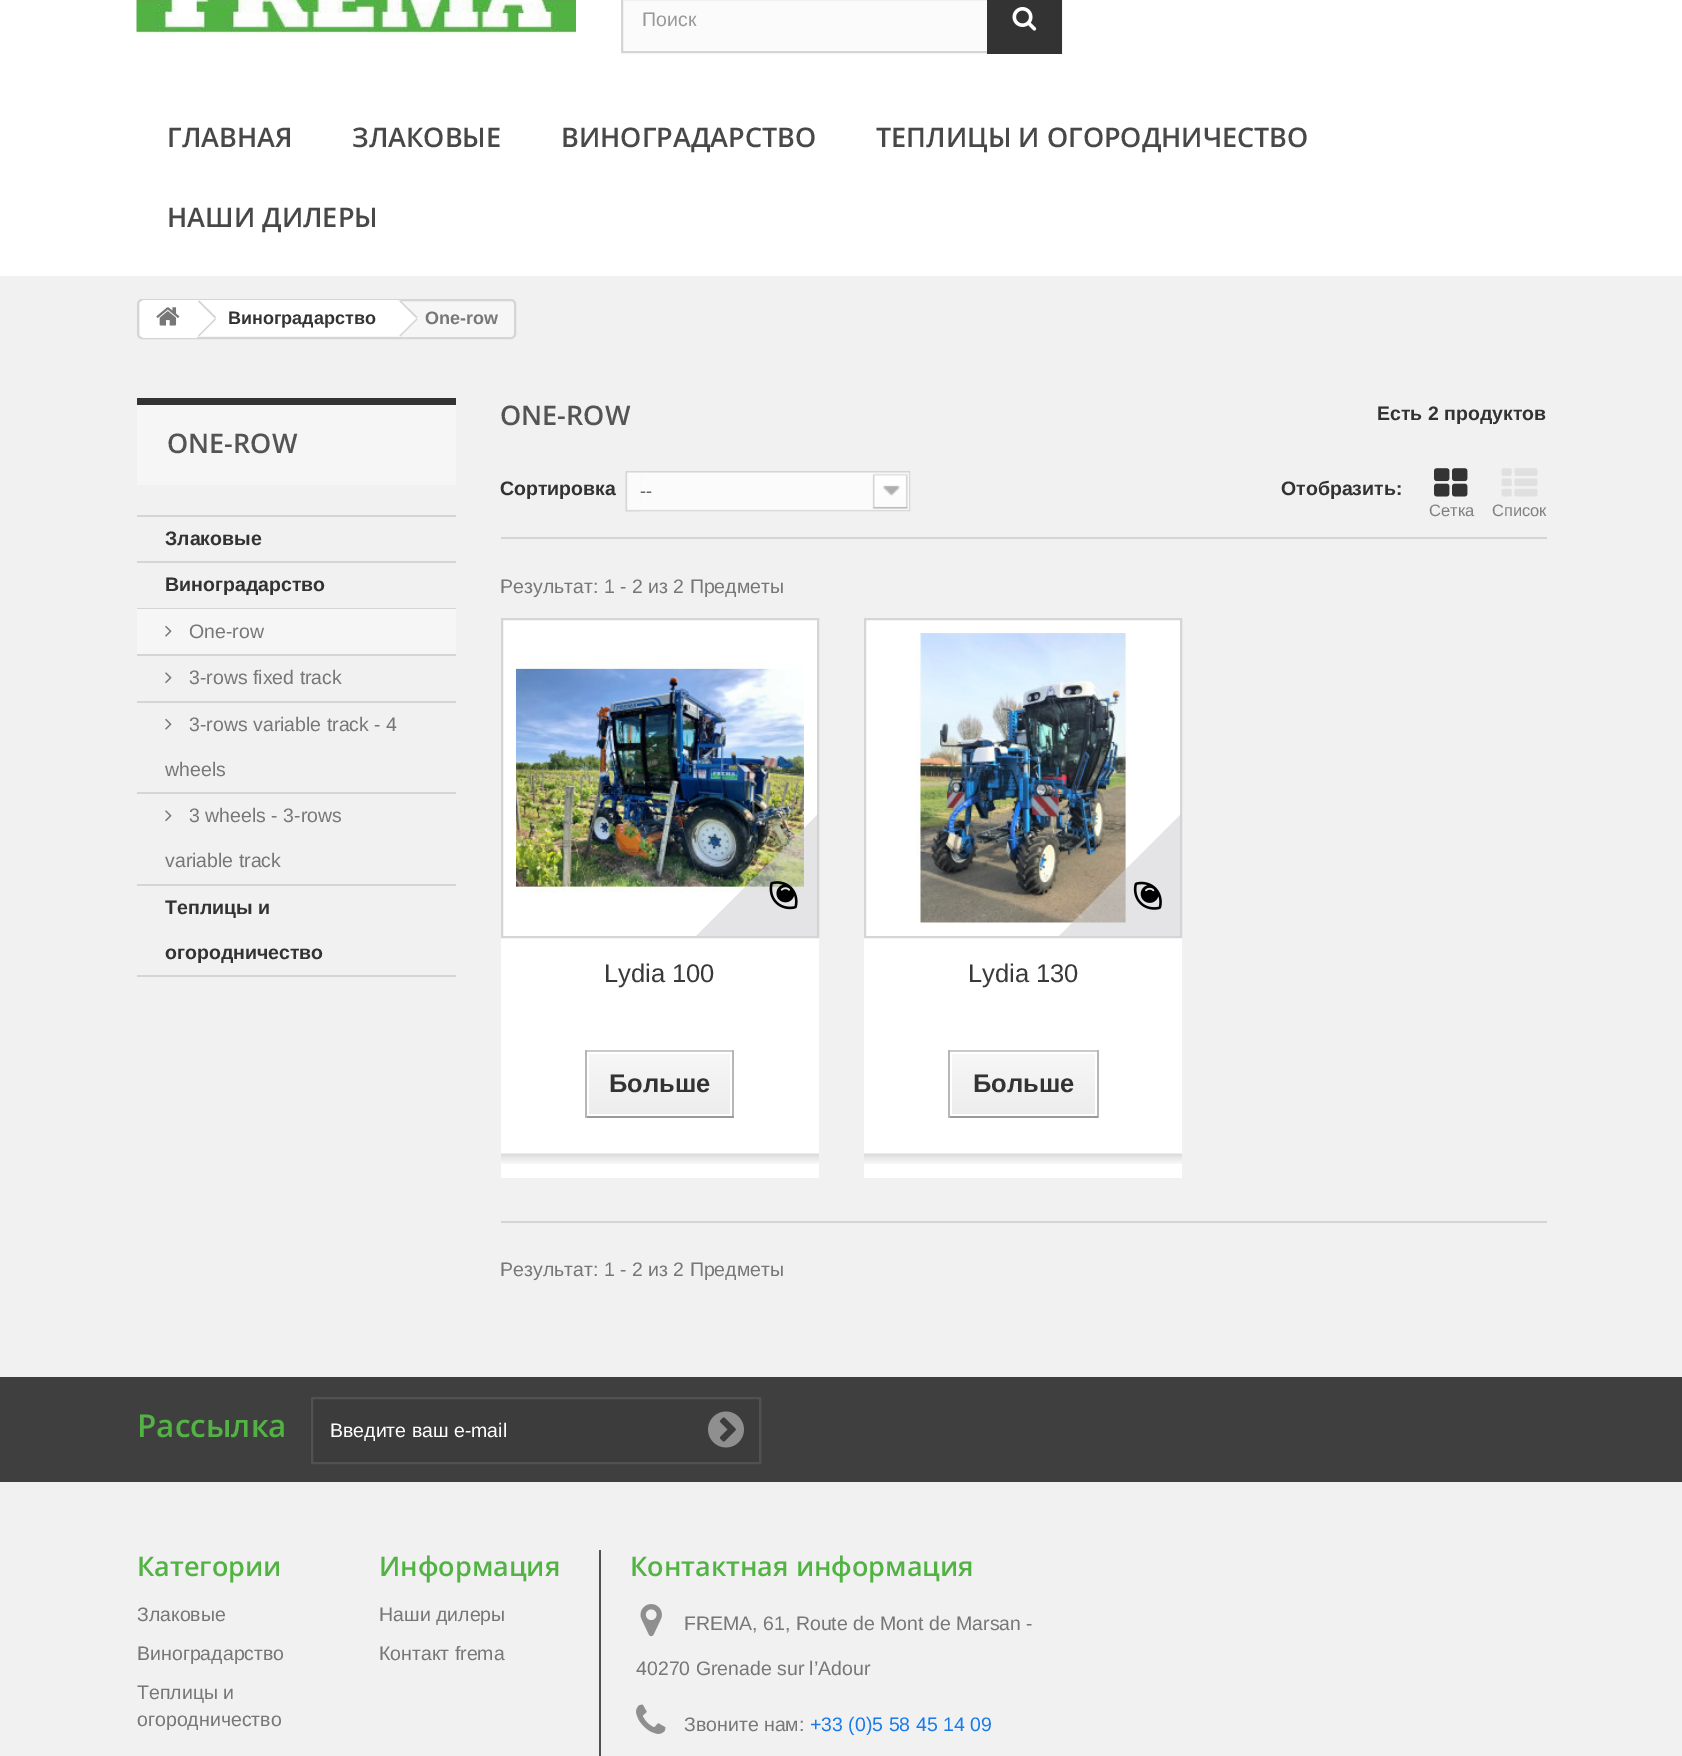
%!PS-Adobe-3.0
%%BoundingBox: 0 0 1682 1756
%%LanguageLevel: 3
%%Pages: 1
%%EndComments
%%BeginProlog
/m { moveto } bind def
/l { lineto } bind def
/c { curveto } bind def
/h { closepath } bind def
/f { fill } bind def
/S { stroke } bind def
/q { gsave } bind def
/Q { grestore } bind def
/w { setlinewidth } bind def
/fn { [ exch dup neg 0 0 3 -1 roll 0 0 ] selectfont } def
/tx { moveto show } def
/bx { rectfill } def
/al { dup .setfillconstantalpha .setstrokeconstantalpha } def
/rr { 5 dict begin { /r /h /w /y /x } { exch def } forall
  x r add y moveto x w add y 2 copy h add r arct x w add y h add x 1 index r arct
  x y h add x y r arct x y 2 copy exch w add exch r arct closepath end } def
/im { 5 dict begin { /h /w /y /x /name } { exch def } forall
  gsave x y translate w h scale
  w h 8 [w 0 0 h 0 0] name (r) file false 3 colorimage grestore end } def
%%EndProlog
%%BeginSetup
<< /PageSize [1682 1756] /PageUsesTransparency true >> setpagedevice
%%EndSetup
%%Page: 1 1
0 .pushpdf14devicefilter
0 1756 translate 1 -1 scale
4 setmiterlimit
1 setgray
0 0 1682 1756 bx
(image0.raw) 136 0 440 34 im
0.984 setgray
623 0 364 51 bx
0.839 0.831 0.831 setrgbcolor
2 w
622 -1 439 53 rectstroke
/LiberationSans-Regular 19.5 fn
0.6 setgray
(Поиск) 642 26 tx
0.2 setgray
987 0 75 54 bx
(image1.raw) 1012 7 25 24 im
/OpenSans-SemiBold 27 fn
0.282 setgray
(ГЛАВНАЯ) 167 147 tx
(ЗЛАКОВЫЕ) 352 147 tx
(ВИНОГРАДАРСТВО) 561 147 tx
(ТЕПЛИЦЫ И ОГОРОДНИЧЕСТВО) 876 147 tx
(НАШИ ДИЛЕРЫ) 167 227 tx
0.945 setgray
0 276 1682 1101 bx
0.965 setgray
138 300 377 38 4 rr q f Q
0.839 0.831 0.831 setrgbcolor
S
1 setgray
145 300 m 197 300 l 197 338 l 145 338 l 142 338 140 336 140 333 c 140 305 l 140 302 142 300 145 300 c h f
(image2.raw) 156 307 24 19 im
197 300 201 36 bx
0.839 0.831 0.831 setrgbcolor
199 300.5 m 216 317 l 215 318.5 l 198 301.5 l h f
215 318.5 m 216 319.5 l 199 336.5 l 198 335.5 l h f
/LiberationSans-Bold 18 fn
0.2 setgray
(Виноградарство) 228 324 tx
1 setgray
401.5 301.5 m 416.5 316 l 417.5 317.5 417.5 319 416.5 320.5 c 401.5 335.5 l 400.5 336.5 398.5 336.5 397 335.5 c 382.5 320.5 l 381 319 381 317.5 382.5 316 c 397 301.5 l 398.5 300 400.5 300 401.5 301.5 c h f
0.839 0.831 0.831 setrgbcolor
400.5 300.5 m 417.5 317 l 416.5 318.5 l 399.5 301.5 l h f
416.5 318.5 m 417.5 319.5 l 400.5 336.5 l 399.5 335.5 l h f
0.467 setgray
(One-row) 425 324 tx
0.965 setgray
137 405 319 80 bx
0.2 setgray
137 398 319 7 bx
/OpenSans-SemiBold 27 fn
0.333 0.329 0.329 setrgbcolor
(ONE-ROW) 167 453 tx
0.839 0.831 0.831 setrgbcolor
137 515 319 2 bx
137 561 319 2 bx
/LiberationSans-Bold 19.5 fn
0.2 setgray
(Злаковые) 165 545 tx
0.839 0.831 0.831 setrgbcolor
137 608 319 1 bx
0.2 setgray
(Виноградарство) 165 591 tx
0.965 setgray
137 609 319 45 bx
0.839 0.831 0.831 setrgbcolor
137 654 319 2 bx
(image3.raw) 165 625 7 12 im
/LiberationSans-Regular 19.5 fn
0.467 setgray
(One-row) 189 638 tx
0.839 0.831 0.831 setrgbcolor
137 701 319 2 bx
(image4.raw) 165 672 7 12 im
0.467 setgray
(3-rows fixed track) 189 684 tx
0.839 0.831 0.831 setrgbcolor
137 792 319 2 bx
(image5.raw) 165 718 7 12 im
0.467 setgray
(3-rows variable track - 4) 189 731 tx
(wheels) 165 776 tx
0.839 0.831 0.831 setrgbcolor
137 884 319 2 bx
(image4.raw) 165 810 7 12 im
0.467 setgray
(3 wheels - 3-rows) 189 822 tx
(variable track) 165 867 tx
0.839 0.831 0.831 setrgbcolor
137 975 319 2 bx
/LiberationSans-Bold 19.5 fn
0.2 setgray
(Теплицы и) 165 914 tx
(огородничество) 165 959 tx
/OpenSans-SemiBold 27 fn
0.333 0.329 0.329 setrgbcolor
(ONE-ROW) 500 425 tx
/LiberationSans-Bold 19.5 fn
0.2 setgray
(Есть 2 продуктов) 1377 420 tx
0.839 0.831 0.831 setrgbcolor
501 537 1046 2 bx
0.2 setgray
(Сортировка) 500 495 tx
(image6.raw) 625 471 16 41 im
(image7.raw) 640 471 271 41 im
/LiberationSans-Regular 18 fn
0.4 setgray
(--) 640 497 tx
/LiberationSans-Bold 19.5 fn
0.2 setgray
(Отобразить:) 1281 495 tx
(image8.raw) 1434 468 34 29 im
/LiberationSans-Regular 16.5 fn
0.502 setgray
(Сетка) 1429 516 tx
(image9.raw) 1501 468 37 29 im
(Список) 1492 516 tx
/LiberationSans-Regular 19.5 fn
0.467 setgray
(Результат: 1 - 2 из 2 Предметы) 500 593 tx
1 setgray
501 620 318 558 bx
0.839 0.831 0.831 setrgbcolor
502 619 316 318 rectstroke
(image10.raw) 516 662 288 231 im
q
495 704 323 232 rectclip
0.57 al
0.816 0.816 0.827 setrgbcolor
826 806 m 916 897 l 778 1035 l 688 944 l h f
Q
(image11.raw) 769 881 29 29 im
/LiberationSans-Regular 25.5 fn
0.227 0.224 0.224 setrgbcolor
(Lydia 100) 604 982 tx
0.792 setgray
585 1050 149 2 bx
0.718 setgray
732 1050 2 68 bx
0.604 setgray
585 1116 149 2 bx
0.718 setgray
585 1050 2 68 bx
q 589 1054 m 730 1054 l 730 1114 l 589 1114 l h clip newpath
<< /ShadingType 2 /ColorSpace /DeviceRGB /Coords [659 1053 659 1115] /Extend [true true] /Function << /FunctionType 2 /Domain [0 1] /C0 [0.969 0.969 0.969] /C1 [0.929 0.929 0.929] /N 1 >> >> shfill Q
/LiberationSans-Bold 25.5 fn
0.2 setgray
(Больше) 609 1092 tx
(image12.raw) 501 1153 318 11 im
1 setgray
864 620 318 558 bx
0.839 0.831 0.831 setrgbcolor
865 619 316 318 rectstroke
(image13.raw) 916 633 212 290 im
q
858 704 323 232 rectclip
0.57 al
0.816 0.816 0.827 setrgbcolor
1189 806 m 1279 897 l 1142 1035 l 1051 944 l h f
Q
(image14.raw) 1133 881 29 29 im
/LiberationSans-Regular 25.5 fn
0.227 0.224 0.224 setrgbcolor
(Lydia 130) 968 982 tx
0.792 setgray
948 1050 150 2 bx
0.718 setgray
1097 1050 2 68 bx
0.604 setgray
948 1116 150 2 bx
0.718 setgray
948 1050 2 68 bx
q 952 1054 m 1095 1054 l 1095 1114 l 952 1114 l h clip newpath
<< /ShadingType 2 /ColorSpace /DeviceRGB /Coords [1023 1053 1023 1115] /Extend [true true] /Function << /FunctionType 2 /Domain [0 1] /C0 [0.969 0.969 0.969] /C1 [0.929 0.929 0.929] /N 1 >> >> shfill Q
/LiberationSans-Bold 25.5 fn
0.2 setgray
(Больше) 973 1092 tx
(image12.raw) 864 1153 318 11 im
0.839 0.831 0.831 setrgbcolor
501 1221 1046 2 bx
/LiberationSans-Regular 19.5 fn
0.467 setgray
(Результат: 1 - 2 из 2 Предметы) 500 1276 tx
0.945 setgray
0 1482 1682 274 bx
0.247 setgray
0 1377 1682 105 bx
/OpenSans-SemiBold 31.5 fn
0.322 0.698 0.267 setrgbcolor
(Рассылка) 137 1437 tx
0.235 setgray
312 1398 m 760 1398 l 760 1463 l 312 1463 l h q f Q
0.318 setgray
S
/LiberationSans-Regular 19.5 fn
1 setgray
(Введите ваш e-mail) 330 1437 tx
(image15.raw) 708 1411 36 37 im
/OpenSans-SemiBold 27 fn
0.322 0.698 0.267 setrgbcolor
(Категории) 137 1576 tx
/LiberationSans-Regular 19.5 fn
0.467 setgray
(Злаковые) 137 1621 tx
(Виноградарство) 137 1660 tx
(Теплицы и) 137 1699 tx
(огородничество) 137 1726 tx
/OpenSans-SemiBold 27 fn
0.322 0.698 0.267 setrgbcolor
(Информация) 379 1576 tx
/LiberationSans-Regular 19.5 fn
0.467 setgray
(Наши дилеры) 379 1621 tx
(Контакт frema) 379 1660 tx
0.318 setgray
599 1550 2 206 bx
/OpenSans-SemiBold 27 fn
0.322 0.698 0.267 setrgbcolor
(Контактная информация) 630 1576 tx
(image16.raw) 640 1604 22 33 im
/LiberationSans-Regular 19.5 fn
0.467 setgray
(FREMA, 61, Route de Mont de Marsan -) 684 1630 tx
(40270 Grenade sur l’Adour) 636 1675 tx
(image17.raw) 636 1704 30 30 im
(Звоните нам:) 684 1731 tx
0.102 0.478 0.91 setrgbcolor
(+33 \(0\)5 58 45 14 09) 810 1731 tx
.poppdf14devicefilter showpage
%%EOF
